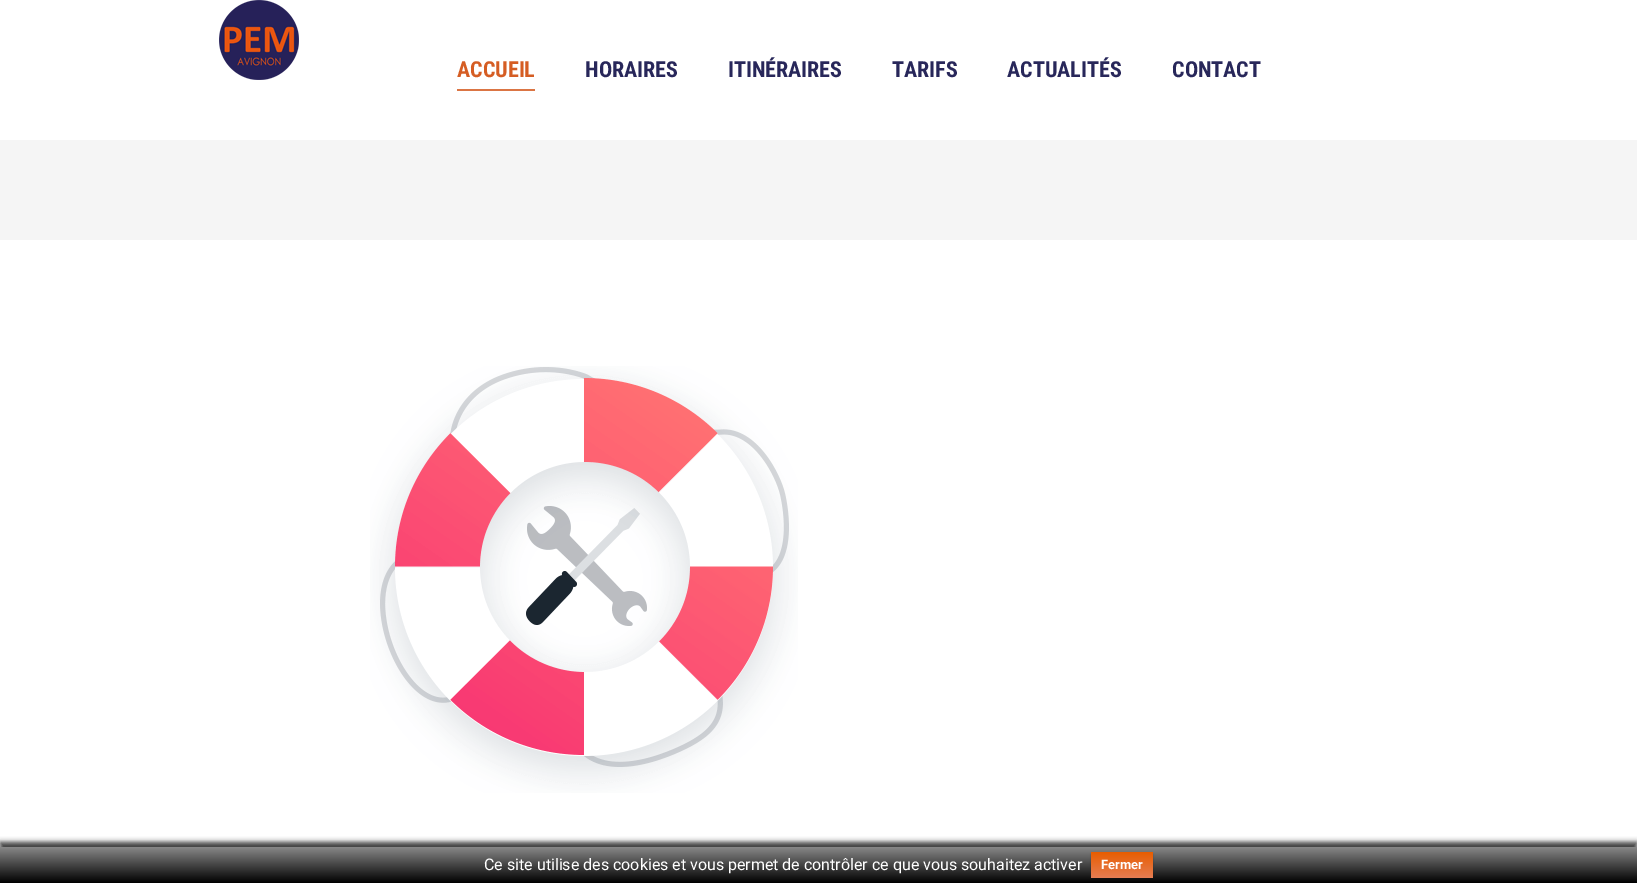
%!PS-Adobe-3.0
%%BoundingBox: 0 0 1637 883
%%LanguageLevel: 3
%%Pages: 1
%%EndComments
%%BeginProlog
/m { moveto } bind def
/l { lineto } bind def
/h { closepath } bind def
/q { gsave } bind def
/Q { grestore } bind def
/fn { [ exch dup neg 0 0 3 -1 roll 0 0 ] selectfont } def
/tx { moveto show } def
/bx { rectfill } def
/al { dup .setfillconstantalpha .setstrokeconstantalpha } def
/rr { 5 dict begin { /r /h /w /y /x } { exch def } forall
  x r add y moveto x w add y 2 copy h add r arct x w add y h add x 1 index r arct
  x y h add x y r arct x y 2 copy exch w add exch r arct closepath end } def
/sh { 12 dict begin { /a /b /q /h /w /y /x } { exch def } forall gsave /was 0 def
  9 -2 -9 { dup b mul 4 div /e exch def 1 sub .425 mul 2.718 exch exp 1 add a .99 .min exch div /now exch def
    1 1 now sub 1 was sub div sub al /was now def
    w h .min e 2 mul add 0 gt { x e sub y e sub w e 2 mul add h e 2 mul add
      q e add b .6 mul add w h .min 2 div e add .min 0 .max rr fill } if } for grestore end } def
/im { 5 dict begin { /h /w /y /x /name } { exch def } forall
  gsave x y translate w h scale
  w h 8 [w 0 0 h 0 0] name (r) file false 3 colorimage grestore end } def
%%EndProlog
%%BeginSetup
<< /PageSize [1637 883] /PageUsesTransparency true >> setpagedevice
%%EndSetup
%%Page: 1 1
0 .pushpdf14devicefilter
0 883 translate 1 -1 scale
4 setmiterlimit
1 setgray
0 0 1637 883 bx
(image0.raw) 219 0 80 80 im
/RobotoCondensed-Bold 22 fn
0.835 0.365 0.137 setrgbcolor
(ACCUEIL) 457 77 tx
0.859 0.459 0.267 setrgbcolor
457 89 78 2 bx
0.157 0.153 0.353 setrgbcolor
(HORAIRES) 585 77 tx
(ITINÉRAIRES) 728 77 tx
(TARIFS) 892 77 tx
(ACTUALITÉS) 1007 77 tx
(CONTACT) 1172 77 tx
0.961 setgray
0 140 1637 100 bx
(image1.raw) 370 366 428 427 im
0 setgray
0 842 1637 36 0 2.5 0.75 sh
q 0 847 m 1637 847 l 1637 883 l 0 883 l h clip newpath
<< /ShadingType 2 /ColorSpace /DeviceRGB /Coords [819 847 819 883] /Extend [true true] /Function << /FunctionType 2 /Domain [0 1] /C0 [0.533 0.533 0.533] /C1 [0 0 0] /N 1 >> >> shfill Q
/Roboto-Regular 16 fn
1 setgray
(Ce site utilise des cookies et vous permet de contrôler ce que vous souhaitez activer) 484 870 tx
0 setgray
1091 853 62 26 2 1 0.2 sh
q 1091 852 62 26 2 rr clip newpath
<< /ShadingType 2 /ColorSpace /DeviceRGB /Coords [1122 852 1122 878] /Extend [true true] /Function << /FunctionType 2 /Domain [0 1] /C0 [0.91 0.365 0] /C1 [0.902 0.49 0.325] /N 1 >> >> shfill Q
/Roboto-Bold 13 fn
1 setgray
(Fermer) 1101 869 tx
.poppdf14devicefilter showpage
%%EOF
